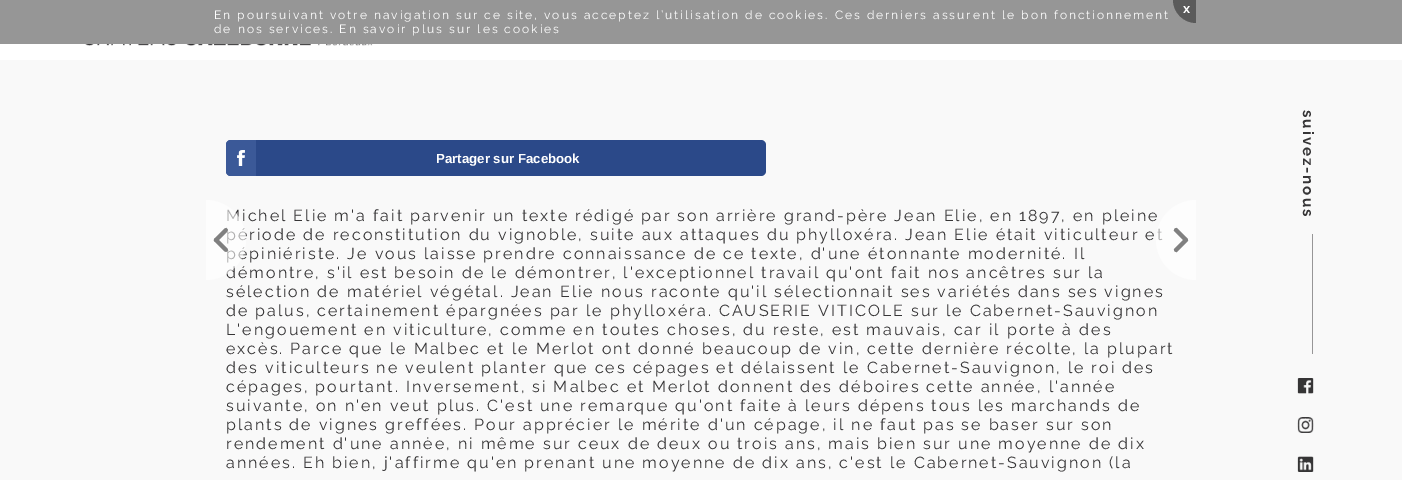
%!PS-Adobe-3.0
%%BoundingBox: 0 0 1402 480
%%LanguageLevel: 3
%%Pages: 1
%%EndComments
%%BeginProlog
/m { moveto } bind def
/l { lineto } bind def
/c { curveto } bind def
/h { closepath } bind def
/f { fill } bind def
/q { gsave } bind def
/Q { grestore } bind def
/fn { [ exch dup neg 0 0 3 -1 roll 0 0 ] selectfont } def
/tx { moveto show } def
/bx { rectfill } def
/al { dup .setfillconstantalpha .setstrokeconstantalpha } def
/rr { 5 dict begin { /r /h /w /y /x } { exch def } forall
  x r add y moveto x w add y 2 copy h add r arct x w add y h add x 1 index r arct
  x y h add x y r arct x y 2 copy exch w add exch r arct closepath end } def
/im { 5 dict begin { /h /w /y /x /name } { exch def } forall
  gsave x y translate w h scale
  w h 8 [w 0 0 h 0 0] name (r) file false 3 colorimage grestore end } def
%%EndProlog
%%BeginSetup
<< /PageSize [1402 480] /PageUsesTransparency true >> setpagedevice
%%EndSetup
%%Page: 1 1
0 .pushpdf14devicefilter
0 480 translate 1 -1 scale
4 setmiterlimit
0.976 setgray
0 0 1402 480 bx
0.588 setgray
0 0 1402 44 bx
/Raleway-Regular 12 fn
1 setgray
214 19 m 2 0 (En poursuivant votre navigation sur ce site, vous acceptez l’utilisation de cookies. Ces derniers assurent le bon fonctionnement) ashow
214 33 m 2 0 (de nos services. En savoir plus sur les cookies) ashow
0.353 setgray
1173 0 m 1196 0 l 1196 23 l 1183.5 23 1173 12.5 1173 0 c h f
/Raleway-Bold 13.25 fn
1 setgray
1183 13 m 2 0 (x) ashow
0.169 0.286 0.537 setrgbcolor
226 140 540 36 5 rr f
0.231 0.349 0.596 setrgbcolor
231 140 m 256 140 l 256 176 l 231 176 l 228 176 226 174 226 171 c 226 145 l 226 142 228 140 231 140 c h f
(image0.raw) 237 150 8 16 im
/LiberationSans-Bold 13.25 fn
1 setgray
(Partager sur Facebook) 436 163 tx
/Raleway-Regular 16 fn
0.212 0.208 0.212 setrgbcolor
226 221 m 2 0 (Michel Elie m'a fait parvenir un texte rédigé par son arrière grand-père Jean Elie, en 1897, en pleine) ashow
226 240 m 2 0 (période de reconstitution du vignoble, suite aux attaques du phylloxéra. Jean Elie était viticulteur et) ashow
226 259 m 2 0 (pépiniériste. Je vous laisse prendre connaissance de ce texte, d'une étonnante modernité. Il) ashow
226 278 m 2 0 (démontre, s'il est besoin de le démontrer, l'exceptionnel travail qu'ont fait nos ancêtres sur la) ashow
226 297 m 2 0 (sélection de matériel végétal. Jean Elie nous raconte qu'il sélectionnait ses variétés dans ses vignes) ashow
226 316 m 2 0 (de palus, certainement épargnées par le phylloxéra. CAUSERIE VITICOLE sur le Cabernet-Sauvignon) ashow
226 335 m 2 0 (L'engouement en viticulture, comme en toutes choses, du reste, est mauvais, car il porte à des) ashow
226 354 m 2 0 (excès. Parce que le Malbec et le Merlot ont donné beaucoup de vin, cette dernière récolte, la plupart) ashow
226 373 m 2 0 (des viticulteurs ne veulent planter que ces cépages et délaissent le Cabernet-Sauvignon, le roi des) ashow
226 392 m 2 0 (cépages, pourtant. Inversement, si Malbec et Merlot donnent des déboires cette année, l'année) ashow
226 411 m 2 0 (suivante, on n'en veut plus. C'est une remarque qu'ont faite à leurs dépens tous les marchands de) ashow
226 430 m 2 0 (plants de vignes greffées. Pour apprécier le mérite d'un cépage, il ne faut pas se baser sur son) ashow
226 449 m 2 0 (rendement d'une annėe, ni même sur ceux de deux ou trois ans, mais bien sur une moyenne de dix) ashow
226 468 m 2 0 (années. Eh bien, j'affirme qu'en prenant une moyenne de dix ans, c'est le Cabernet-Sauvignon \(la) ashow
0.6 al
1 setgray
206 200 m 228 200 246 218 246 240 c 246 262 228 280 206 280 c h f
1 al
0.502 setgray
214.5 238.5 m 219.5 233.5 l 221 232.5 224.5 227.5 226.5 228 c 227.5 229 l 229 231 225 233.5 224 235 c 217 242 l 215 242.5 213 240 214.5 238.5 c h f
217.5 238.5 m 222.5 243.5 l 223.5 245 228.5 248.5 228 250.5 c 227 251.5 l 225 253 222.5 249 221 248 c 214 241 l 213.5 239 216 237 217.5 238.5 c h f
0.6 al
1 setgray
1196 200 m 1196 280 l 1174 280 1156 262 1156 240 c 1156 218 1174 200 1196 200 c h f
1 al
0.502 setgray
1177.5 228.5 m 1182.5 233.5 l 1183.5 235 1188.5 238.5 1188 240.5 c 1187 241.5 l 1185 243 1182.5 239 1181 238 c 1174 231 l 1173.5 229 1176 227 1177.5 228.5 c h f
1174.5 248.5 m 1179.5 243.5 l 1181 242.5 1184.5 237.5 1186.5 238 c 1187.5 239 l 1189 241 1185 243.5 1184 245 c 1177 252 l 1175 252.5 1173 250 1174.5 248.5 c h f
1 setgray
0 44 1402 16 bx
(image1.raw) 85 44 288 2 im
/Raleway-Bold 15 fn
0.212 0.208 0.212 setrgbcolor
q 1303 110 translate 90 rotate 0 0 m 2 0 (suivez-nous) ashow Q
0.592 0.588 0.592 setrgbcolor
1312 234 1 120 bx
(image2.raw) 1297 378 17 16 im
(image3.raw) 1297 417 17 16 im
(image4.raw) 1297 456 17 16 im
.poppdf14devicefilter showpage
%%EOF
